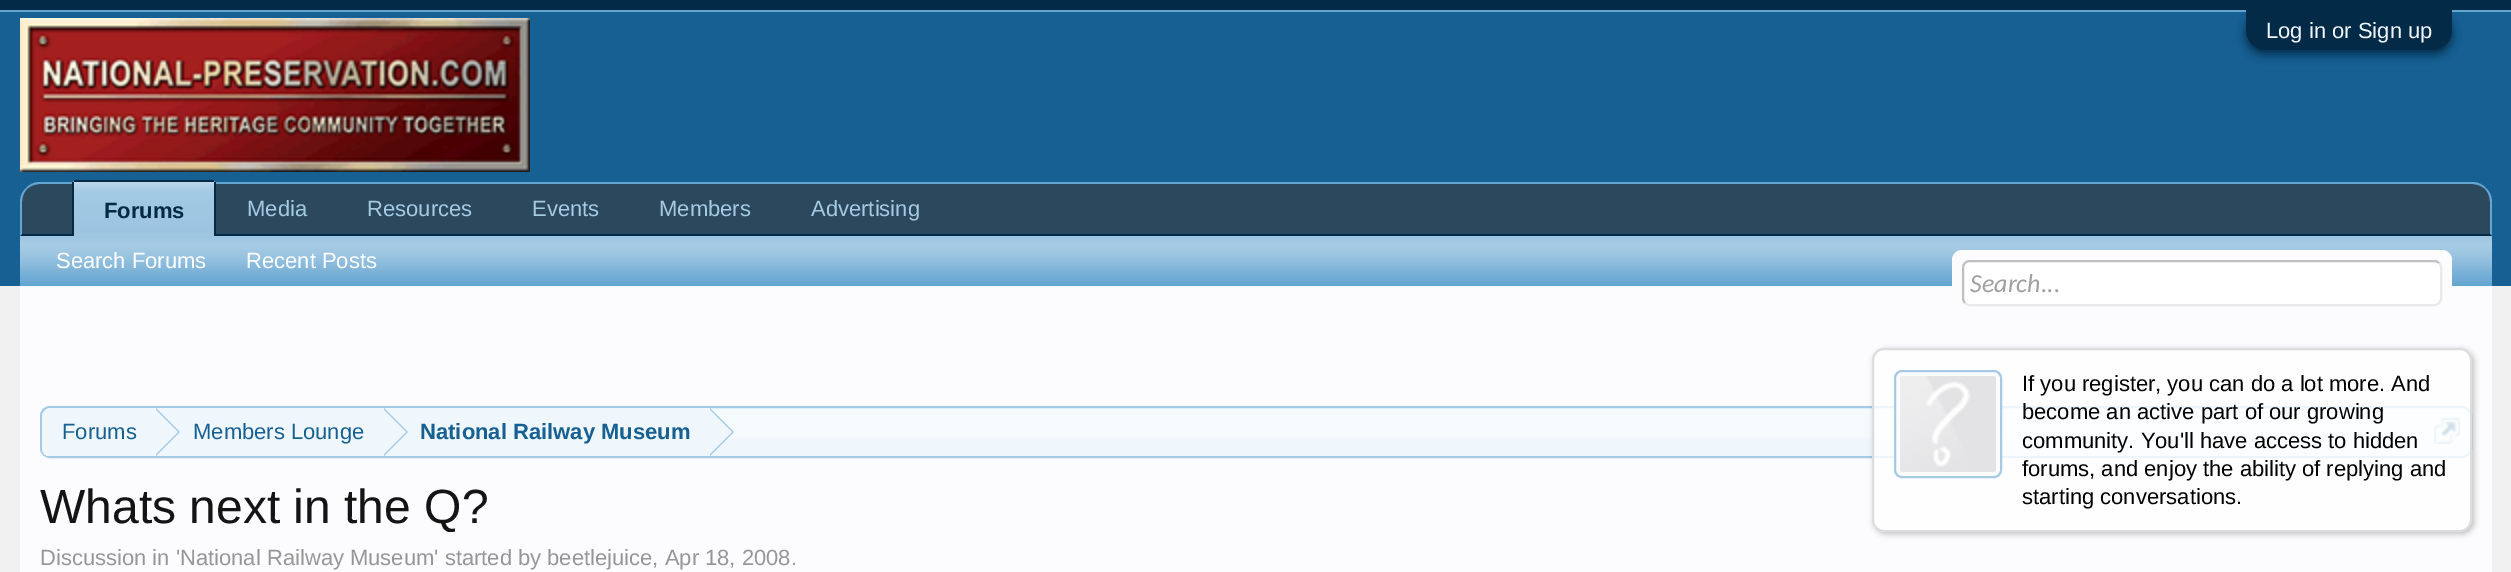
%!PS-Adobe-3.0
%%BoundingBox: 0 0 2511 572
%%LanguageLevel: 3
%%Pages: 1
%%EndComments
%%BeginProlog
/m { moveto } bind def
/l { lineto } bind def
/c { curveto } bind def
/h { closepath } bind def
/f { fill } bind def
/S { stroke } bind def
/q { gsave } bind def
/Q { grestore } bind def
/w { setlinewidth } bind def
/fn { [ exch dup neg 0 0 3 -1 roll 0 0 ] selectfont } def
/tx { moveto show } def
/bx { rectfill } def
/al { dup .setfillconstantalpha .setstrokeconstantalpha } def
/rr { 5 dict begin { /r /h /w /y /x } { exch def } forall
  x r add y moveto x w add y 2 copy h add r arct x w add y h add x 1 index r arct
  x y h add x y r arct x y 2 copy exch w add exch r arct closepath end } def
/sh { 12 dict begin { /a /b /q /h /w /y /x } { exch def } forall gsave /was 0 def
  9 -2 -9 { dup b mul 4 div /e exch def 1 sub .425 mul 2.718 exch exp 1 add a .99 .min exch div /now exch def
    1 1 now sub 1 was sub div sub al /was now def
    w h .min e 2 mul add 0 gt { x e sub y e sub w e 2 mul add h e 2 mul add
      q e add b .6 mul add w h .min 2 div e add .min 0 .max rr fill } if } for grestore end } def
/im { 5 dict begin { /h /w /y /x /name } { exch def } forall
  gsave x y translate w h scale
  w h 8 [w 0 0 h 0 0] name (r) file false 3 colorimage grestore end } def
%%EndProlog
%%BeginSetup
<< /PageSize [2511 572] /PageUsesTransparency true >> setpagedevice
%%EndSetup
%%Page: 1 1
0 .pushpdf14devicefilter
0 572 translate 1 -1 scale
4 setmiterlimit
0.941 setgray
0 0 2511 572 bx
0.012 0.165 0.275 setrgbcolor
0 0 2511 10 bx
0.396 0.647 0.82 setrgbcolor
0 10 2511 2 bx
0.09 0.376 0.576 setrgbcolor
0 12 2511 274 bx
0.012 0.165 0.275 setrgbcolor
2246 14 206 40 20 5 1 sh
2246 10 m 2452 10 l 2452 30 l 2452 41 2443 50 2432 50 c 2266 50 l 2255 50 2246 41 2246 30 c h f
/LiberationSans-Regular 22 fn
0.941 0.969 0.988 setrgbcolor
(Log in or Sign up) 2266 38 tx
(image0.raw) 20 18 510 154 im
0.169 0.282 0.361 setrgbcolor
40 182 m 2472 182 l 2483 182 2492 191 2492 202 c 2492 236 l 20 236 l 20 202 l 20 191 29 182 40 182 c h f
0.396 0.647 0.82 setrgbcolor
40 182 m 34 182 30 184 26 188 c 27 189 l 30 186 35 184 40 184 c 2472 184 l 2477 184 2482 186 2485 189 c 2486 188 l 2482 184 2478 182 2472 182 c h f
2492 236 m 2492 202 l 2492 196 2490 192 2486 188 c 2485 189 l 2488 192 2490 197 2490 202 c 2490 234 l h f
0.012 0.165 0.275 setrgbcolor
2492 236 m 2490 234 l 22 234 l 20 236 l h f
0.396 0.647 0.82 setrgbcolor
20 236 m 22 234 l 22 202 l 22 197 24 192 27 189 c 26 188 l 22 192 20 196 20 202 c h f
0.647 0.792 0.894 setrgbcolor
(Media) 247 216 tx
(Resources) 367 216 tx
(Events) 532 216 tx
(Members) 659 216 tx
(Advertising) 811 216 tx
0.396 0.647 0.82 setrgbcolor
76 180 m 212 180 l 214 180 216 182 216 184 c 216 236 l 72 236 l 72 184 l 72 182 74 180 76 180 c h f
(image1.raw) 74 182 140 54 im
0.012 0.165 0.275 setrgbcolor
74 180 140 2 bx
214 182 2 54 bx
72 182 2 54 bx
/LiberationSans-Bold 22 fn
(Forums) 104 218 tx
0.396 0.647 0.82 setrgbcolor
20 236 2472 50 bx
(image2.raw) 20 236 2472 47 im
/LiberationSans-Regular 22 fn
1 setgray
(Search Forums) 56 268 tx
(Recent Posts) 246 268 tx
0.988 0.988 1 setrgbcolor
20 286 2472 286 bx
1952 250 500 56 10 rr f
1 setgray
1962 260 480 46 8 rr f
0.914 setgray
2 w
2439 263 m 2440.5 264.5 2441 266 2441 268 c 2441 298 l 2441 300 2440.5 301.5 2439 303 c 2437.5 304.5 2436 305 2434 305 c 1970 305 l 1968 305 1966.5 304.5 1965 303 c S
0.753 setgray
1965 303 m 1963.5 301.5 1963 300 1963 298 c 1963 268 l 1963 266 1963.5 264.5 1965 263 c 1966.5 261.5 1968 261 1970 261 c 2434 261 l 2436 261 2437.5 261.5 2439 263 c S
/Carlito-Italic 26 fn
0.627 setgray
(Search...) 1970 292 tx
0.941 0.969 0.988 setrgbcolor
40 406 2432 52 10 rr f
(image3.raw) 40 408 2430 31 im
0.647 0.792 0.894 setrgbcolor
41 407 2430 50 9 rr S
q
42 408 2428 48 8 rr clip newpath
0.941 0.969 0.988 setrgbcolor
52 408 m 156 408 l 156 458 l 52 458 l 46.5 458 42 453.5 42 448 c 42 418 l 42 412.5 46.5 408 52 408 c h f
Q
/LiberationSans-Regular 22 fn
0.09 0.376 0.576 setrgbcolor
(Forums) 62 439 tx
0.941 0.969 0.988 setrgbcolor
156 408 554 31 bx
0.647 0.792 0.894 setrgbcolor
156 456 m 156 408 l 180 432 l h f
0.941 0.969 0.988 setrgbcolor
154 456 m 154 408 l 178 432 l h f
0.09 0.376 0.576 setrgbcolor
(Members Lounge) 193 439 tx
0.647 0.792 0.894 setrgbcolor
384 456 m 384 408 l 408 432 l h f
0.941 0.969 0.988 setrgbcolor
382 456 m 382 408 l 406 432 l h f
/LiberationSans-Bold 22 fn
0.09 0.376 0.576 setrgbcolor
(National Railway Museum) 420 439 tx
0.647 0.792 0.894 setrgbcolor
710 456 m 710 408 l 734 432 l h f
0.941 0.969 0.988 setrgbcolor
708 456 m 708 408 l 732 432 l h f
(image4.raw) 2434 418 26 26 im
q
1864 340 m 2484 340 l 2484 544 l 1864 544 l h 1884 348 m 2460 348 l 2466.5 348 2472 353.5 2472 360 c 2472 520 l 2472 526.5 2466.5 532 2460 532 c 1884 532 l 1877.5 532 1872 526.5 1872 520 c 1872 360 l 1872 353.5 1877.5 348 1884 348 c h eoclip newpath
0 setgray
1874 350 600 184 12 3 0.25 sh
Q
0.8 al
1 setgray
1873 349 598 182 11 rr f
1 al
0.867 setgray
1873 349 598 182 11 rr S
0.988 0.988 1 setrgbcolor
1895 371 106 106 7 rr q f Q
0.647 0.792 0.894 setrgbcolor
S
(image5.raw) 1900 376 96 96 im
/LiberationSans-Regular 22 fn
0 setgray
(If you register, you can do a lot more. And) 2022 391 tx
(become an active part of our growing) 2022 419 tx
(community. You'll have access to hidden) 2022 448 tx
(forums, and enjoy the ability of replying and) 2022 476 tx
(starting conversations.) 2022 504 tx
/LiberationSans-Regular 48 fn
0.078 setgray
(Whats next in the Q?) 40 523 tx
/LiberationSans-Regular 22 fn
0.588 setgray
(Discussion in 'National Railway Museum' started by beetlejuice, Apr 18, 2008.) 40 565 tx
.poppdf14devicefilter showpage
%%EOF
